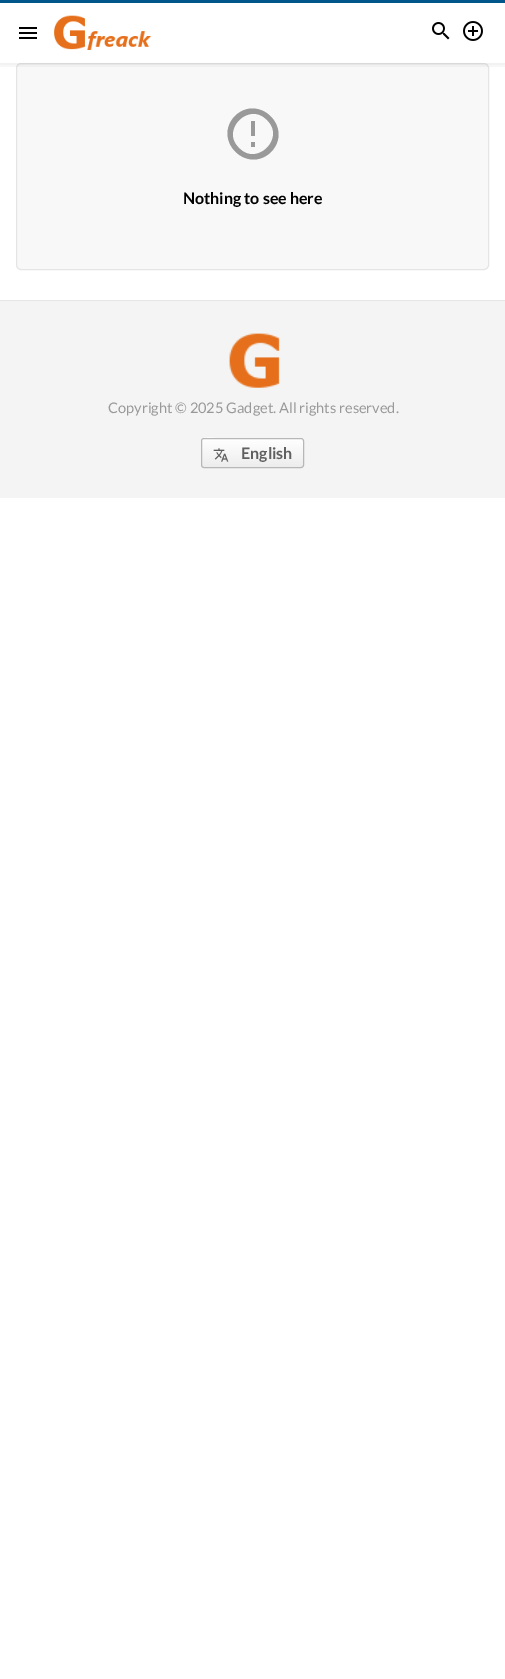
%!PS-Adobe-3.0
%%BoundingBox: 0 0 505 1679
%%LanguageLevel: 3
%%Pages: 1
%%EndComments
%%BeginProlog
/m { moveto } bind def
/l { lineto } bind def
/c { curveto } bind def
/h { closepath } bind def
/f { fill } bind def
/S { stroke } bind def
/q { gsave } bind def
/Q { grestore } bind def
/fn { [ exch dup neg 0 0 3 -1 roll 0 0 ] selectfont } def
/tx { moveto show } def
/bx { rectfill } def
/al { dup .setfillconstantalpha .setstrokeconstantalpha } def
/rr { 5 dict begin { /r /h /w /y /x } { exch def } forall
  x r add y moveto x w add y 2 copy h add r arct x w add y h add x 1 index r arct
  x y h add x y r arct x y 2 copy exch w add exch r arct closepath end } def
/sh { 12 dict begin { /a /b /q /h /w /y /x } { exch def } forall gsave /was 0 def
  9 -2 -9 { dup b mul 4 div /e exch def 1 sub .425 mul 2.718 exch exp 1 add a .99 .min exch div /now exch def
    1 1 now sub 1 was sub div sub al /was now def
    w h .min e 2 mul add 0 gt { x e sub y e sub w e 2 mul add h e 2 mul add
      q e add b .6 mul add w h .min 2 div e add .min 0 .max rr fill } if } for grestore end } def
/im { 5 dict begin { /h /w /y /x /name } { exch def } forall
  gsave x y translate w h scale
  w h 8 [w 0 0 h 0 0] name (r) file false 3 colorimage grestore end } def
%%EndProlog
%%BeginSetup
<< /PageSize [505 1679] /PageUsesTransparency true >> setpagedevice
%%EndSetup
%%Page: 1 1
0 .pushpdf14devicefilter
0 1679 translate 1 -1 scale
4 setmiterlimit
1 setgray
0 0 505 1679 bx
0.973 setgray
16.5 63.5 472 206 4.5 rr q f Q
0.898 setgray
S
q
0 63 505 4 rectclip
0 setgray
0 1 505 63 0 4 0.1 sh
Q
0 0.333 0.541 setrgbcolor
0 0 505 3 bx
(image0.raw) 19 27 18 12 im
(image1.raw) 54 15 98 35 im
(image2.raw) 432 22 18 18 im
(image3.raw) 463 21 20 20 im
0.6 setgray
239 148 m 257 167 286 138 267 120 c 249 101 220 130 239 148 c h 235 116 m 259 93 294 128 271 152 c 247 175 212 140 235 116 c h 251 121 m 255 121 l 255 136 l 251 136 l h 251 142 m 255 142 l 255 147 l 251 147 l h f
/Lato-Bold 16 fn
0 setgray
(Nothing to see here) 183 204 tx
0.957 setgray
0 301 505 197 bx
0.902 setgray
0 300 505 1 bx
(image4.raw) 229 333 51 55 im
/Lato-Regular 14.6 fn
0.6 setgray
(Copyright © 2025 Gadget. All rights reserved.) 108 413 tx
q
201 438 103 30 3 rr clip newpath
q 201 439 m 304 439 l 304 467 l 201 467 l h clip newpath
<< /ShadingType 2 /ColorSpace /DeviceRGB /Coords [253 439 253 467] /Extend [true true] /Function << /FunctionType 2 /Domain [0 1] /C0 [1 1 1] /C1 [0.929 0.929 0.929] /N 1 >> >> shfill Q
Q
1 setgray
204 440 m 301 440 l 302 440 303 441 303 442 c 303 441 303 439 301 439 c 220 439 l 219 439 202 434 202 442 c 202 441 203 440 204 440 c h f
0.718 setgray
201.5 438.5 102 29 2.5 rr S
(image5.raw) 213 448 16 14 im
/Lato-Bold 16 fn
0.376 setgray
(English) 241 459 tx
.poppdf14devicefilter showpage
%%EOF
